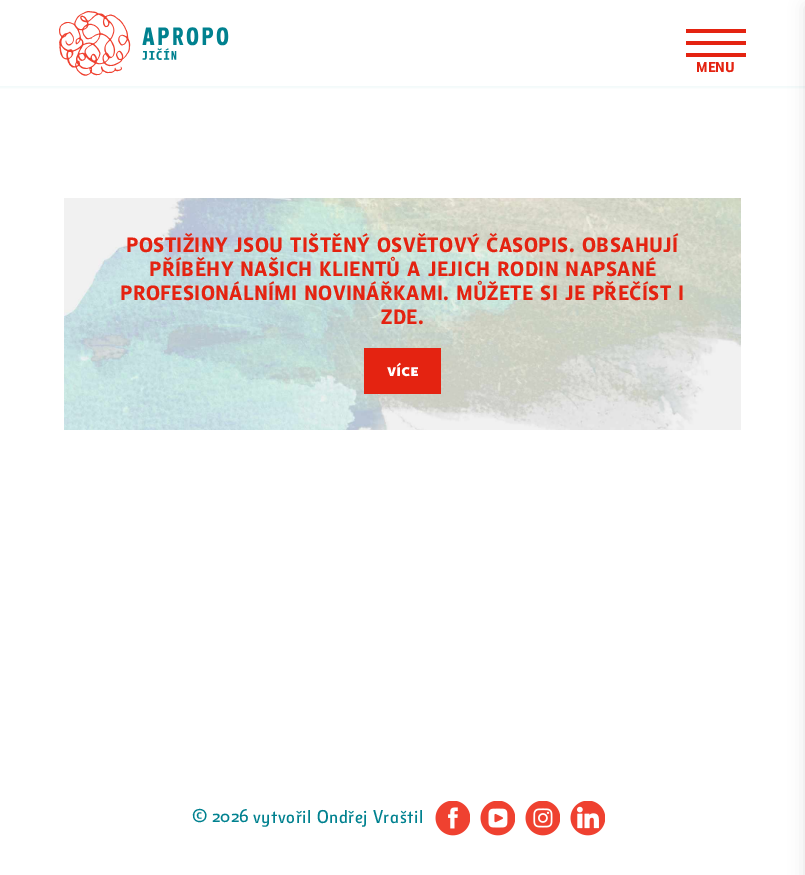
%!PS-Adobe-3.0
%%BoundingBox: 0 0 805 875
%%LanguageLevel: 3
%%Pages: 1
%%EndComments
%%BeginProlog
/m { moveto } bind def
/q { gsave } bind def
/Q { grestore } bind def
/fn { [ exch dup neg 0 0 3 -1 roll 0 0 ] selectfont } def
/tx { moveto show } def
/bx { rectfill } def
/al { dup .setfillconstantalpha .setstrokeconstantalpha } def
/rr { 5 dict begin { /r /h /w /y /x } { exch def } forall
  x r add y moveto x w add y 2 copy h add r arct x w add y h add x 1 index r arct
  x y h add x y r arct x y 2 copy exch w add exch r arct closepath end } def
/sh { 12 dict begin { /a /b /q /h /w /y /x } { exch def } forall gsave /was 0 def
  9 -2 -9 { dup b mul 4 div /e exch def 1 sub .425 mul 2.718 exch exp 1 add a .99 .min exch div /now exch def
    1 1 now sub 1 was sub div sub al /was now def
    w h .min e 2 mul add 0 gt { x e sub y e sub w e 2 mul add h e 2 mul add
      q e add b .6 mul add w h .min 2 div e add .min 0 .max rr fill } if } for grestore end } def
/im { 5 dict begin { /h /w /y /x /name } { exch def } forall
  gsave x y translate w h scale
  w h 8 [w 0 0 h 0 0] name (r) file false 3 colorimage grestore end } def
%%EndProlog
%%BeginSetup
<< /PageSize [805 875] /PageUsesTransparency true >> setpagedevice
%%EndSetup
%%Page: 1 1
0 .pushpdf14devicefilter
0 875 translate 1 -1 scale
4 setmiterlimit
1 setgray
0 0 805 875 bx
q
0 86 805 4 rectclip
0.949 0.976 0.976 setrgbcolor
-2 -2 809 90 0 1 1 sh
Q
(image0.raw) 59 11 170 65 im
0.894 0.137 0.067 setrgbcolor
686 29 60 4 bx
686 41 60 4 bx
686 53 60 4 bx
/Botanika-Black 14 fn
(MENU) 696 72 tx
0 setgray
805 6 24 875 0 8 0.11 sh
(image1.raw) 64 198 677 232 im
/Botanika-Black 20 fn
0.894 0.137 0.067 setrgbcolor
126 252 m 0.4 0 (POSTIŽINY JSOU TIŠTĚNÝ OSVĚTOVÝ ČASOPIS. OBSAHUJÍ) ashow
149 276 m 0.4 0 (PŘÍBĚHY NAŠICH KLIENTŮ A JEJICH RODIN NAPSANÉ) ashow
120 300 m 0.4 0 (PROFESIONÁLNÍMI NOVINÁŘKAMI. MŮŽETE SI JE PŘEČÍST I) ashow
381 324 m 0.4 0 (ZDE.) ashow
364 348 77 46 bx
/Botanika-Black 18 fn
1 setgray
(více) 387 376 tx
/Botanika-Medium 18 fn
0 0.506 0.561 setrgbcolor
(© 2026) 192 822 tx
253 823 m 0.5 0 (vytvořil Ondřej Vraštil) ashow
(image2.raw) 435 801 35 35 im
(image3.raw) 480 801 35 35 im
(image4.raw) 525 801 35 35 im
(image5.raw) 570 801 35 35 im
.poppdf14devicefilter showpage
%%EOF
